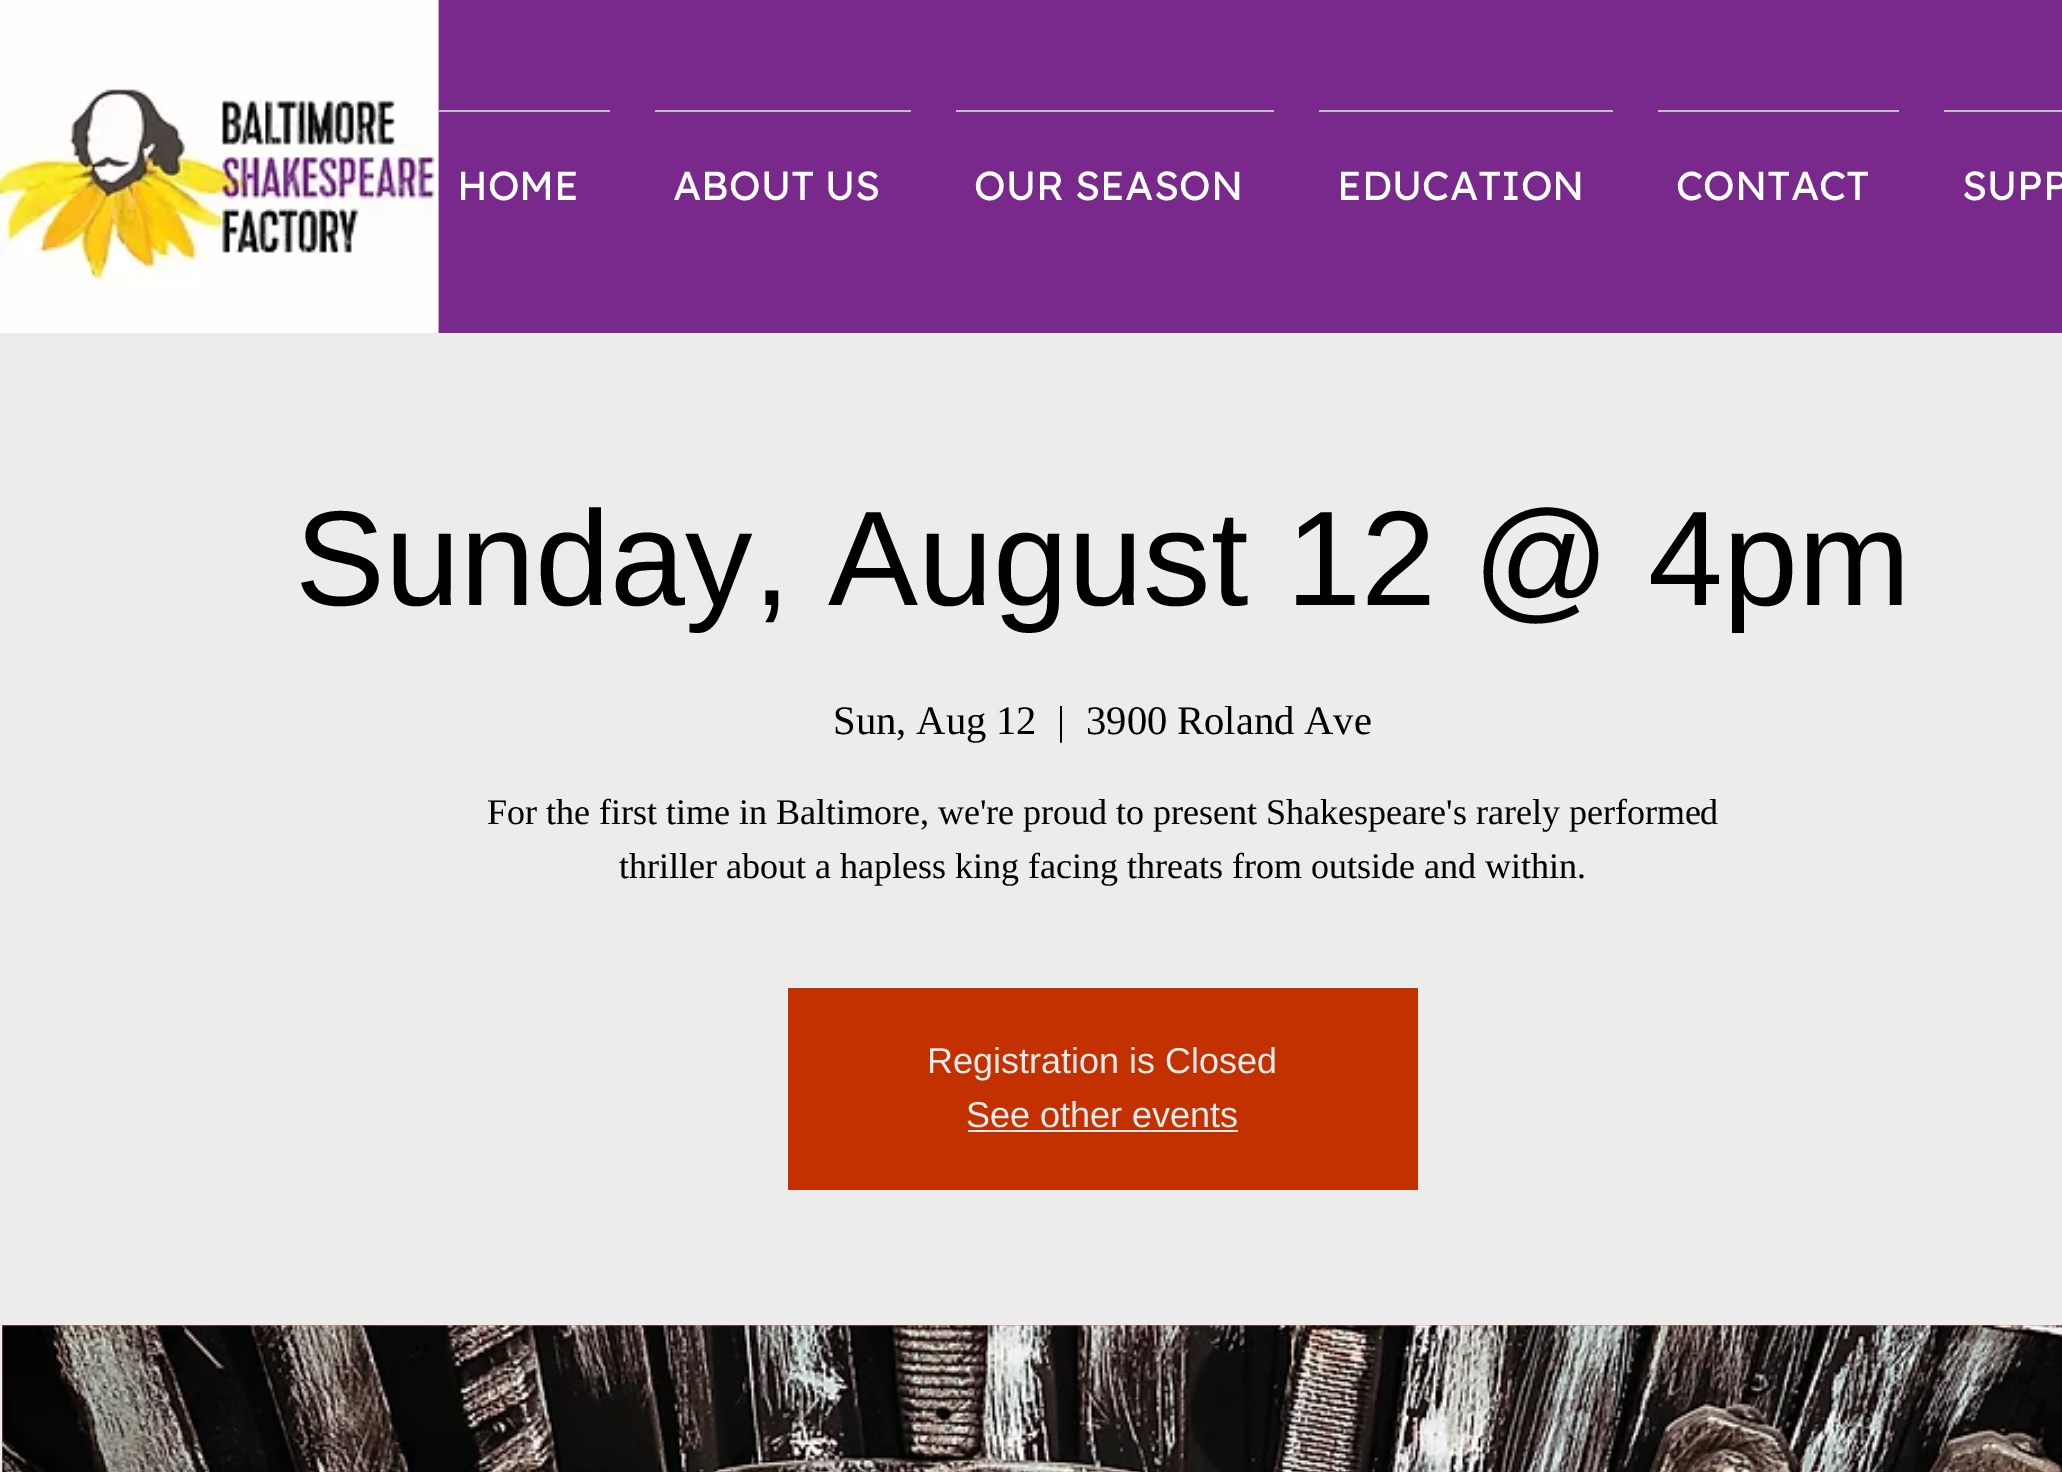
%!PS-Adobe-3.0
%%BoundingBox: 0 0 2062 1472
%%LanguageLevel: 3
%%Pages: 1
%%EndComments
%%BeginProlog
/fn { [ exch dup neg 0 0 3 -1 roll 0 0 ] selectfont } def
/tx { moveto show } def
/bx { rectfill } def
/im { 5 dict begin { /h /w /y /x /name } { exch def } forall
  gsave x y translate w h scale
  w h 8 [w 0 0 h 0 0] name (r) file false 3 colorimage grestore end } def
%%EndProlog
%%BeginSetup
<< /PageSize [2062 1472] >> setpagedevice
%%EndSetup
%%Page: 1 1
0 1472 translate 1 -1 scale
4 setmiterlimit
0.925 setgray
0 0 2062 1472 bx
0.475 0.157 0.545 setrgbcolor
438 0 1624 333 bx
(image0.raw) 0 0 439 333 im
0.753 setgray
439 110 171 2 bx
/Lexend-Regular 40.5 fn
1 setgray
(HOME) 457 200 tx
0.753 setgray
655 110 256 2 bx
1 setgray
(ABOUT US) 673 200 tx
0.753 setgray
956 110 318 2 bx
1 setgray
(OUR SEASON) 974 200 tx
0.753 setgray
1319 110 294 2 bx
1 setgray
(EDUCATION) 1337 200 tx
0.753 setgray
1658 110 241 2 bx
1 setgray
(CONTACT) 1676 200 tx
0.753 setgray
1944 110 118 2 bx
1 setgray
(SUPP) 1962 200 tx
/LiberationSans-Regular 135 fn
0 setgray
(Sunday, August 12 @ 4pm) 295 605 tx
/LiberationSerif-Regular 40.5 fn
(Sun, Aug 12) 833 734 tx
(|) 1057 734 tx
(3900 Roland Ave) 1086 734 tx
/LiberationSerif-Regular 36 fn
(For the first time in Baltimore, we're proud to present Shakespeare's rarely performed) 487 824 tx
(thriller about a hapless king facing threats from outside and within.) 619 878 tx
0.769 0.192 0 setrgbcolor
788 988 630 202 bx
/LiberationSans-Regular 36 fn
0.925 setgray
(Registration is Closed) 927 1073 tx
(See other events) 966 1127 tx
968 1130 270 2 bx
0.843 0.525 0.42 setrgbcolor
2 1325 2060 147 bx
(image1.raw) 2 1325 2060 147 im
showpage
%%EOF
